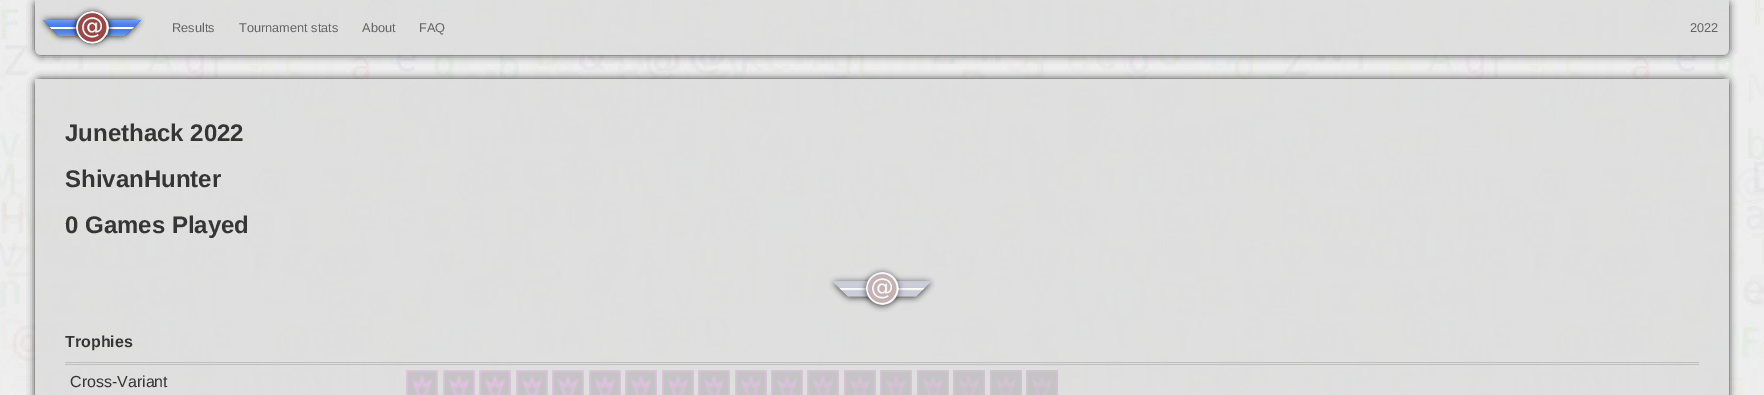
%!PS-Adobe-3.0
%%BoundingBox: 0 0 1764 395
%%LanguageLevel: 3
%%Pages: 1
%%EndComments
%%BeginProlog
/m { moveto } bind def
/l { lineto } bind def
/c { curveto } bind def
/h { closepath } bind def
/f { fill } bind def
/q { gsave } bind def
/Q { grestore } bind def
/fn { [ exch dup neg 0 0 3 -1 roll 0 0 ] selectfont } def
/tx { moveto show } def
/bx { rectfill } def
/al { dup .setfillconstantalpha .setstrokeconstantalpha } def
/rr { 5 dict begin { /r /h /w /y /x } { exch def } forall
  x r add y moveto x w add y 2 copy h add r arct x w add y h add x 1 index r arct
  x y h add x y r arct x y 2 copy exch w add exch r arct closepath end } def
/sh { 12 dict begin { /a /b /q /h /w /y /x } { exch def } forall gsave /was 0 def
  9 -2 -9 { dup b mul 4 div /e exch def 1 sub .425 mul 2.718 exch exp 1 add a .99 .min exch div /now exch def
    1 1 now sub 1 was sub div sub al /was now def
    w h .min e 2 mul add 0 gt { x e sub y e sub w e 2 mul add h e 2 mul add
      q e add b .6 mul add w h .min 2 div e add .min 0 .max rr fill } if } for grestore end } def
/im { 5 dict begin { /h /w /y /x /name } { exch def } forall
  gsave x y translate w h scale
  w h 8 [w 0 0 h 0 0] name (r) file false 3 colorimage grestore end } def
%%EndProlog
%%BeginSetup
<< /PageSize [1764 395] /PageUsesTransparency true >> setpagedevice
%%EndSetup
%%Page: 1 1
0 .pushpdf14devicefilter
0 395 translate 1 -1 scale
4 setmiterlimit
1 setgray
0 0 1764 395 bx
(image0.raw) 0 0 1764 395 im
q
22 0 m 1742 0 l 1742 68 l 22 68 l h 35 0 m 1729 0 l 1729 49 l 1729 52.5 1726.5 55 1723 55 c 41 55 l 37.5 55 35 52.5 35 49 c h eoclip newpath
0.133 setgray
35 0 1694 55 6 4 0.9 sh
Q
0.9 al
0.867 setgray
35 0 m 1729 0 l 1729 49 l 1729 52.5 1726.5 55 1723 55 c 41 55 l 37.5 55 35 52.5 35 49 c h f
1 al
(image1.raw) 39 6 106 43 im
/LiberationSans-Regular 12.75 fn
0.388 setgray
(Results) 172 32 tx
(Tournament stats) 239 32 tx
(About) 362 32 tx
(FAQ) 419 32 tx
(2022) 1690 32 tx
q
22 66 m 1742 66 l 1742 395 l 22 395 l h 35 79 m 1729 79 l 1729 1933 l 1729 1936.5 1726.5 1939 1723 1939 c 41 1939 l 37.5 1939 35 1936.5 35 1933 c h eoclip newpath
0.133 setgray
35 79 1694 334 6 4 0.9 sh
Q
0.9 al
0.867 setgray
35 79 1694 316 bx
/LiberationSans-Bold 24 fn
1 al
0.208 setgray
(Junethack 2022) 65 141 tx
(ShivanHunter) 65 187 tx
(0 Games Played) 65 233 tx
(image2.raw) 829 267 106 45 im
0.749 setgray
65 362 1634 1 bx
65 364 1634 1 bx
/LiberationSans-Bold 16 fn
0.208 setgray
(Trophies) 65 347 tx
/LiberationSans-Regular 16 fn
(Cross-Variant) 70 387 tx
(image3.raw) 406 370 32 25 im
(image4.raw) 443 370 32 25 im
(image5.raw) 479 370 32 25 im
(image6.raw) 516 370 32 25 im
(image7.raw) 552 370 32 25 im
(image8.raw) 589 370 32 25 im
(image9.raw) 625 370 32 25 im
(image10.raw) 662 370 32 25 im
(image11.raw) 698 370 32 25 im
(image12.raw) 735 370 32 25 im
(image13.raw) 771 370 32 25 im
(image14.raw) 807 370 32 25 im
(image15.raw) 844 370 32 25 im
(image16.raw) 880 370 32 25 im
(image17.raw) 917 370 32 25 im
(image18.raw) 953 370 32 25 im
(image19.raw) 990 370 32 25 im
(image20.raw) 1026 370 32 25 im
.poppdf14devicefilter showpage
%%EOF
